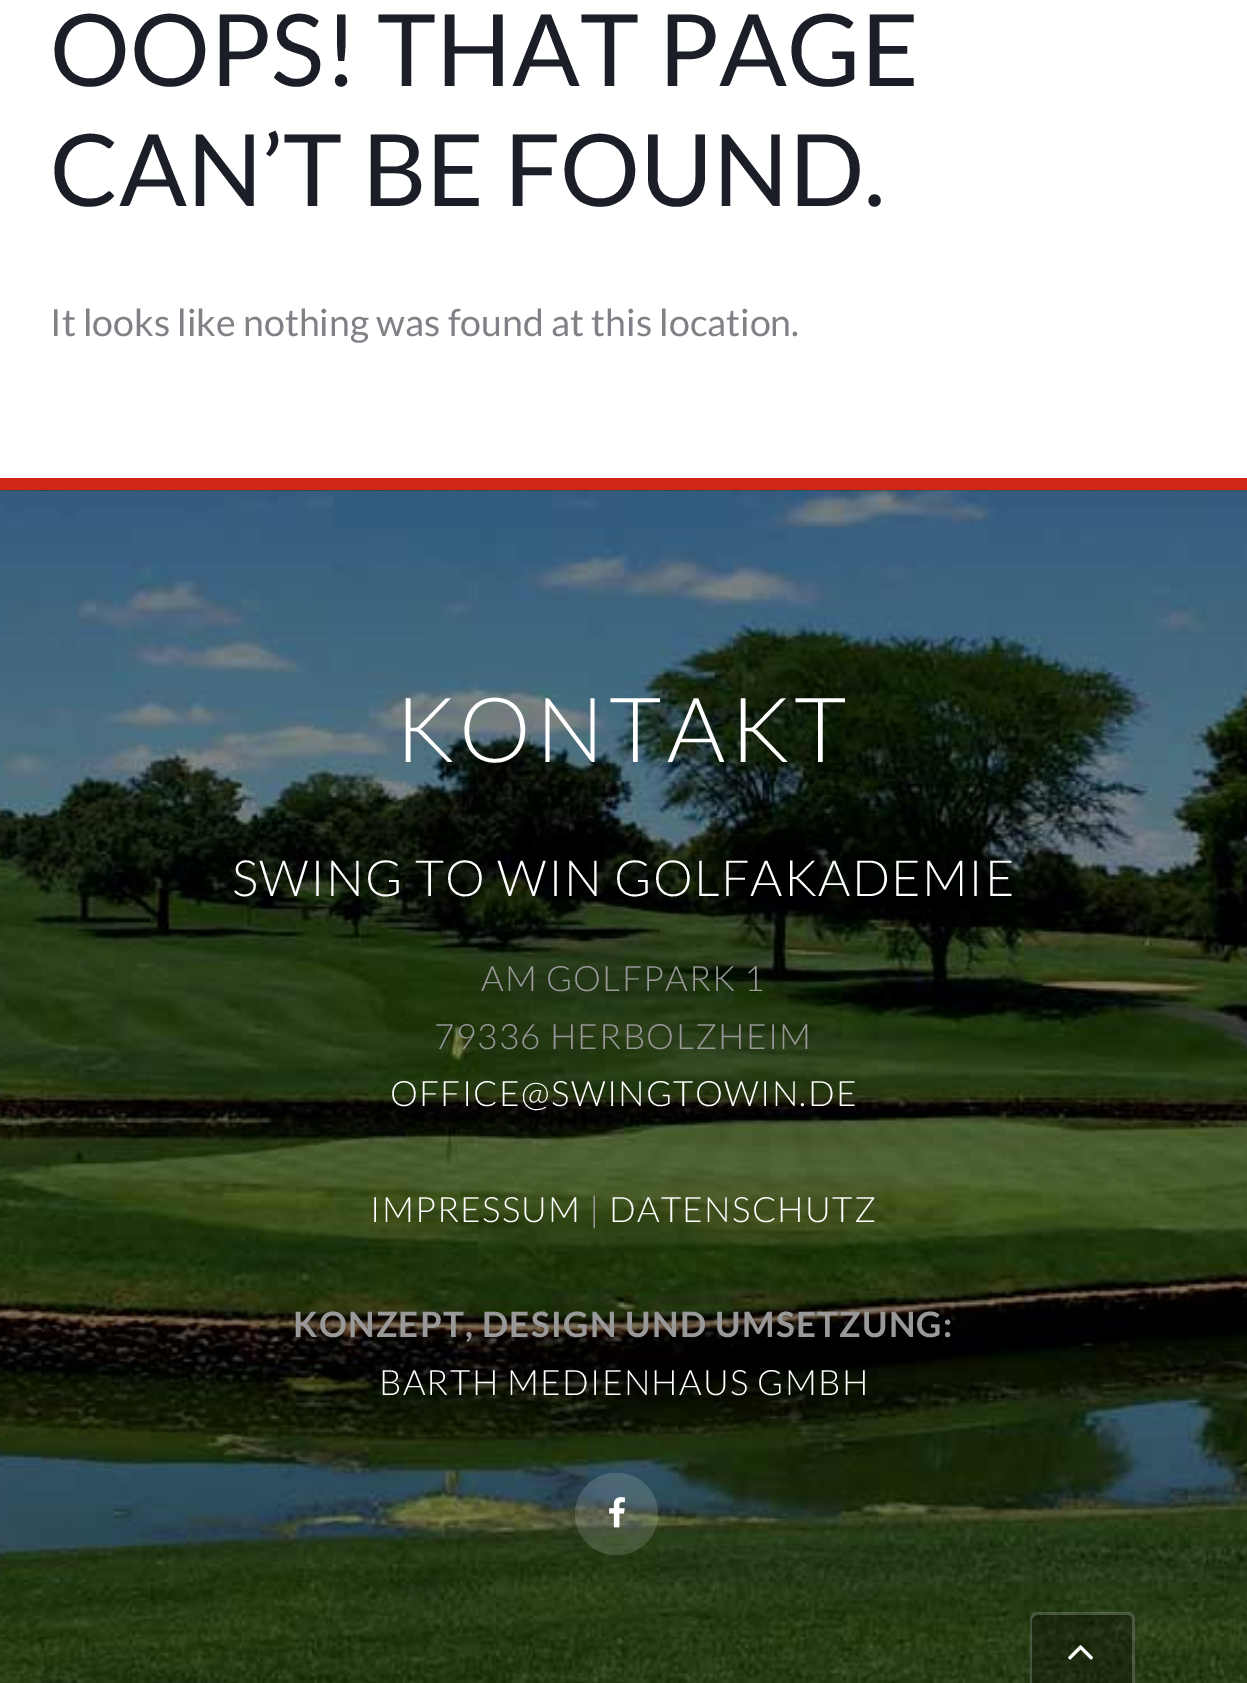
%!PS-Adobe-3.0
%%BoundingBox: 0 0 1247 1683
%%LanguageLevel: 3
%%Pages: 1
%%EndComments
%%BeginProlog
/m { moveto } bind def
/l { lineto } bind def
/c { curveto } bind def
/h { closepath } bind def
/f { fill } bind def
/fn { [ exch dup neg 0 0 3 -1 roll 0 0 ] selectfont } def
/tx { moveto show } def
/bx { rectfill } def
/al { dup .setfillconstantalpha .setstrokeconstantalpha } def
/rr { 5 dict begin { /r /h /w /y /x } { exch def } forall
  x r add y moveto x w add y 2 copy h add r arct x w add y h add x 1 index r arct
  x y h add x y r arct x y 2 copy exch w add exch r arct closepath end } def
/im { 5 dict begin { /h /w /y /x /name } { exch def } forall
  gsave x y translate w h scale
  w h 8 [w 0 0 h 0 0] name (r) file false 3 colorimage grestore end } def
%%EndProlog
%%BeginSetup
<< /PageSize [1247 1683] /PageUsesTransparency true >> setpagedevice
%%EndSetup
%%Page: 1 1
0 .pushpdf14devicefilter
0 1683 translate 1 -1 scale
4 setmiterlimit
1 setgray
0 0 1247 1683 bx
0.816 0.149 0.094 setrgbcolor
0 478 1247 12 bx
/Lato-Regular 100 fn
0.106 0.114 0.153 setrgbcolor
(OOPS! THAT PAGE) 50 86 tx
(CAN’T BE FOUND.) 50 206 tx
/Lato-Regular 37.5 fn
0.498 0.506 0.525 setrgbcolor
(It looks like nothing was found at this location.) 50 336 tx
(image0.raw) 0 490 1247 1193 im
/Lato-Light 90 fn
1 setgray
395 762 m 5 0 (KONTAKT) ashow
/Lato-Light 50 fn
232 896 m 1.25 0 (SWING TO WIN GOLFAKADEMIE) ashow
/Lato-Light 35 fn
0.6 setgray
481 991 m 1.25 0 (AM GOLFPARK 1) ashow
434 1049 m 1.25 0 (79336 HERBOLZHEIM) ashow
1 setgray
390 1106 m 1.25 0 (OFFICE@SWINGTOWIN.DE) ashow
370 1222 m 1.25 0 (IMPRESSUM) ashow
0.6 setgray
589 1222 m 1.25 0 (|) ashow
1 setgray
609 1222 m 1.25 0 (DATENSCHUTZ) ashow
/Lato-Bold 35 fn
0.6 setgray
293 1337 m 1.25 0 (KONZEPT, DESIGN UND UMSETZUNG:) ashow
/Lato-Light 35 fn
1 setgray
379 1395 m 1.25 0 (BARTH MEDIENHAUS GMBH) ashow
0.15 al
575 1473 83 82 41 rr f
1 al
(image1.raw) 609 1497 16 31 im
0.3 al
0 setgray
1038 1613 m 1127 1613 l 1131.5 1613 1135 1616.5 1135 1621 c 1135 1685 l 1030 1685 l 1030 1621 l 1030 1616.5 1033.5 1613 1038 1613 c h f
0.2 al
1 setgray
1038 1612 m 1128 1612 l 1132 1612 1135 1616 1135 1620 c 1135 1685 l 1030 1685 l 1030 1620 l 1030 1616 1033 1612 1038 1612 c h 1038 1615 m 1128 1615 l 1130 1615 1132 1617 1132 1620 c 1132 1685 l 1032 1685 l 1032 1620 l 1032 1617 1035 1615 1038 1615 c h eofill
1 al
(image2.raw) 1068 1645 25 15 im
.poppdf14devicefilter showpage
%%EOF
